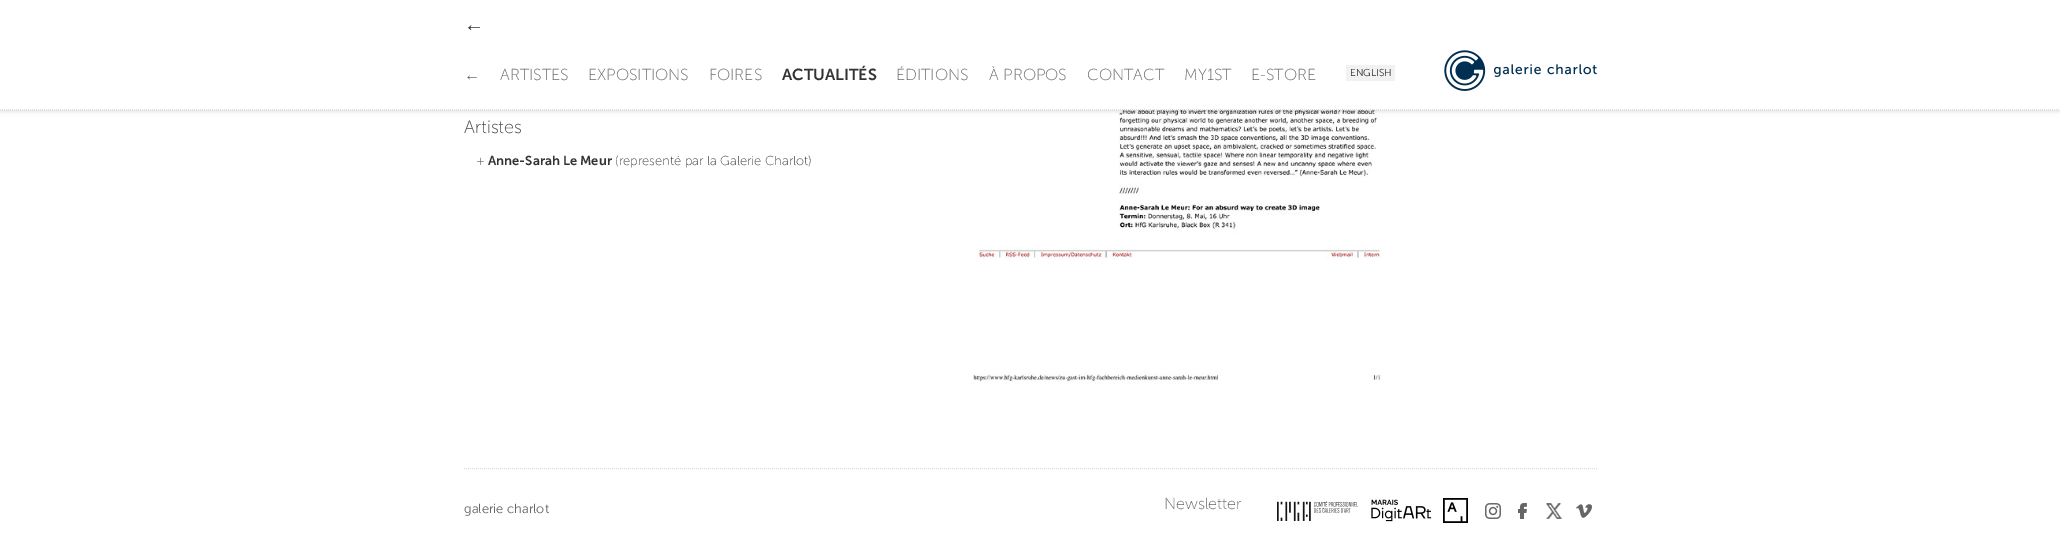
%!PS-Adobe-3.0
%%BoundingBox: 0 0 2060 556
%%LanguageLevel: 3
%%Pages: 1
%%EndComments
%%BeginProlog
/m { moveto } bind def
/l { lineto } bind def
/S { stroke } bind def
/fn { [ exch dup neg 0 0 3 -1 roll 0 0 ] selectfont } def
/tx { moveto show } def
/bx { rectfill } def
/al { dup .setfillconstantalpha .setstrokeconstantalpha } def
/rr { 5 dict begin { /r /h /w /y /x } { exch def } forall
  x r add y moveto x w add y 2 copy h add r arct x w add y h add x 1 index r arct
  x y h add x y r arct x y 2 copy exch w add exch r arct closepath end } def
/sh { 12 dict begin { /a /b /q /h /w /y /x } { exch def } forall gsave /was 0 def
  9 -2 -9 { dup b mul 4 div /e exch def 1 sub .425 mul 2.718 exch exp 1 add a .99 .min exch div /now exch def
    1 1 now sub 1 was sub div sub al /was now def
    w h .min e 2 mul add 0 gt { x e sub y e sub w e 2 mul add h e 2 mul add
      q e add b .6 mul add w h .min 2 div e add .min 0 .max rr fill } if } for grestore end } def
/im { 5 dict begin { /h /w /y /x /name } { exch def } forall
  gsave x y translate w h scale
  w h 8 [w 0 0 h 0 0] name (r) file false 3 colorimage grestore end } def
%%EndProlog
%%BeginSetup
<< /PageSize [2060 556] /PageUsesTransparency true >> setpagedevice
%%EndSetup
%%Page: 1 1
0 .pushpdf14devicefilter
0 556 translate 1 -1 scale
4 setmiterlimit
1 setgray
0 0 2060 556 bx
(image1.raw) 973 110 410 275 im
0 setgray
0 2 2060 110 0 1.5 0.1 sh
1 setgray
0 0 2060 110 bx
0.867 setgray
[1 1] 0 setdash
0 109.5 m 2060 109.5 l S
/LiberationSans-Regular 20 fn
0.2 setgray
(←) 464 31 tx
/LiberationSans-Regular 16 fn
0.4 setgray
(←) 464 80 tx
/MuseoSans-Thin 16 fn
(ARTISTES) 500 80 tx
(EXPOSITIONS) 588 80 tx
(FOIRES) 709 80 tx
/MuseoSans-SemiBold 16 fn
0.2 setgray
(ACTUALITÉS) 782 80 tx
/MuseoSans-Thin 16 fn
0.4 setgray
(ÉDITIONS) 896 80 tx
(À PROPOS) 989 80 tx
(CONTACT) 1087 80 tx
(MY1ST) 1184 80 tx
(E-STORE) 1251 80 tx
0.949 setgray
1346 65 49 16 bx
/MuseoSans-Light 10 fn
0.2 setgray
(ENGLISH) 1350 76 tx
(image0.raw) 1444 50 153 41 im
/MuseoSans-Thin 18 fn
0.267 setgray
(Artistes) 464 133 tx
/MuseoSans-Thin 13 fn
(+) 476 165 tx
/MuseoSans-SemiBold 13 fn
0.2 setgray
(Anne-Sarah Le Meur) 488 165 tx
/MuseoSans-Thin 13 fn
0.267 setgray
(\(representé par la Galerie Charlot\)) 615 165 tx
0.867 setgray
464 468.5 m 1597 468.5 l S
/MuseoSans-Light 13 fn
0.4 setgray
(galerie charlot) 464 513 tx
/MuseoSans-Thin 16 fn
(Newsletter) 1164 509 tx
(image2.raw) 1277 501 81 20 im
(image3.raw) 1371 499 61 23 im
(image4.raw) 1443 498 25 25 im
(image5.raw) 1485 503 16 16 im
(image6.raw) 1518 503 9 16 im
(image7.raw) 1546 503 16 16 im
(image8.raw) 1576 504 16 14 im
.poppdf14devicefilter showpage
%%EOF
